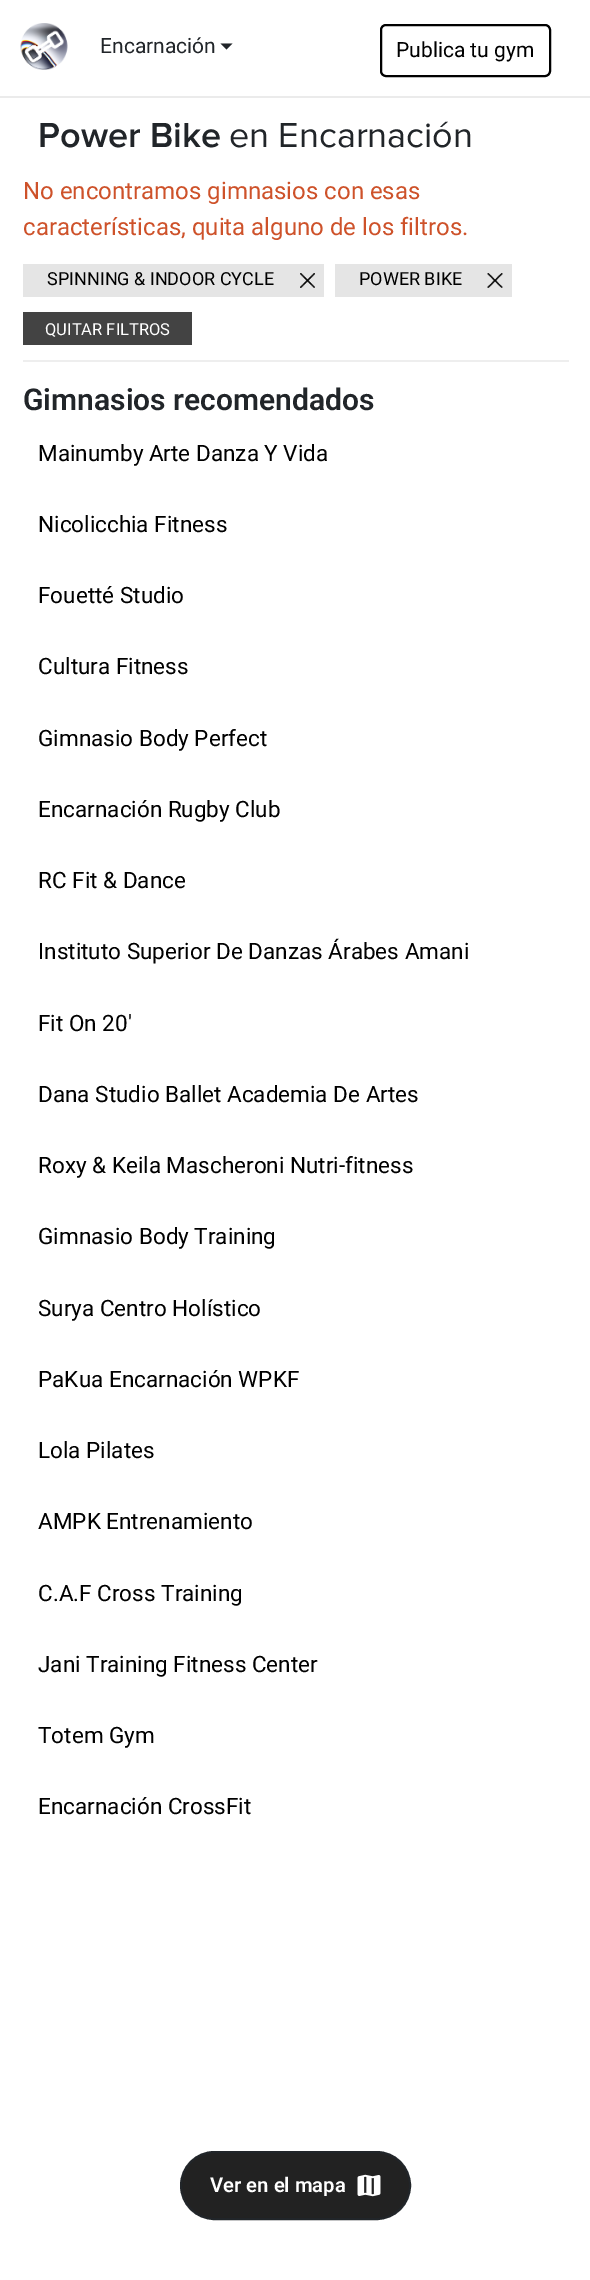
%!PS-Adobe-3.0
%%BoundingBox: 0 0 590 2280
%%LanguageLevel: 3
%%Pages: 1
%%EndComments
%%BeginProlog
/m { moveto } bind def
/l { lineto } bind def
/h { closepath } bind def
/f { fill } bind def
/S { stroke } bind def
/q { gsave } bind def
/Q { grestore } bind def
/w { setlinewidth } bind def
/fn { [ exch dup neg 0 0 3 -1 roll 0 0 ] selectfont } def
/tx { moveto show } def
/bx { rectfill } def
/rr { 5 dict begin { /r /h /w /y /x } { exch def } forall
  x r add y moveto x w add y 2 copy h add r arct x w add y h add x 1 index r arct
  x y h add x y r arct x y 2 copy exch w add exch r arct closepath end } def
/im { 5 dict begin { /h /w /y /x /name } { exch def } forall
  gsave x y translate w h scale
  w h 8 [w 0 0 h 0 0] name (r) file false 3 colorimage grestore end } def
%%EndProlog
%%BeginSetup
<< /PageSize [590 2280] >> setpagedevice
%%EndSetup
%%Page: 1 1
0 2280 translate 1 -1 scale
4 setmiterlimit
1 setgray
0 0 590 2280 bx
0.922 setgray
0 96 590 2 bx
(image0.raw) 20 23 48 47 im
/Roboto-Regular 21 fn
0.129 0.145 0.161 setrgbcolor
(Encarnación) 100 53 tx
220.5 43.5 m 232.5 43.5 l 226.5 49.5 l h f
0 setgray
2 w
381 25 169 51 5 rr S
(Publica tu gym) 396 57 tx
/ProximaNova-SemiBold 36 fn
0.129 0.145 0.161 setrgbcolor
(Power Bike) 38 147 tx
/ProximaNova-Regular 36 fn
(en Encarnación) 229 147 tx
0.933 setgray
23 360 546 2 bx
/Roboto-Regular 24 fn
0.808 0.322 0.165 setrgbcolor
(No encontramos gimnasios con esas) 23 199 tx
(características, quita alguno de los filtros.) 23 235 tx
0.898 setgray
23 264 301 33 bx
/Roboto-Regular 18 fn
0 setgray
(SPINNING & INDOOR CYCLE) 47 285 tx
(image1.raw) 300 273 15 15 im
0.898 setgray
335 264 177 33 bx
0 setgray
(POWER BIKE) 359 285 tx
(image2.raw) 487 273 16 15 im
0.263 setgray
23 312 169 33 bx
/Roboto-Regular 16.5 fn
1 setgray
(QUITAR FILTROS) 45 335 tx
/Roboto-SemiBold 30 fn
0.129 0.145 0.161 setrgbcolor
(Gimnasios recomendados) 23 410 tx
/Roboto-Regular 22.5 fn
0 setgray
(Mainumby Arte Danza Y Vida) 38 461 tx
(Nicolicchia Fitness) 38 532 tx
(Fouetté Studio) 38 603 tx
(Cultura Fitness) 38 674 tx
(Gimnasio Body Perfect) 38 746 tx
(Encarnación Rugby Club) 38 817 tx
(RC Fit & Dance) 38 888 tx
(Instituto Superior De Danzas Árabes Amani) 38 959 tx
(Fit On 20') 38 1031 tx
(Dana Studio Ballet Academia De Artes) 38 1102 tx
(Roxy & Keila Mascheroni Nutri-fitness) 38 1173 tx
(Gimnasio Body Training) 38 1244 tx
(Surya Centro Holístico) 38 1316 tx
(PaKua Encarnación WPKF) 38 1387 tx
(Lola Pilates) 38 1458 tx
(AMPK Entrenamiento) 38 1529 tx
(C.A.F Cross Training) 38 1601 tx
(Jani Training Fitness Center) 38 1672 tx
(Totem Gym) 38 1743 tx
(Encarnación CrossFit) 38 1814 tx
0.133 setgray
181 2152 229 67 33.5 rr q f Q
0.129 0.145 0.161 setrgbcolor
S
/Roboto-SemiBold 20.25 fn
1 setgray
(Ver en el mapa) 210 2192 tx
(image3.raw) 357 2174 24 23 im
showpage
%%EOF
